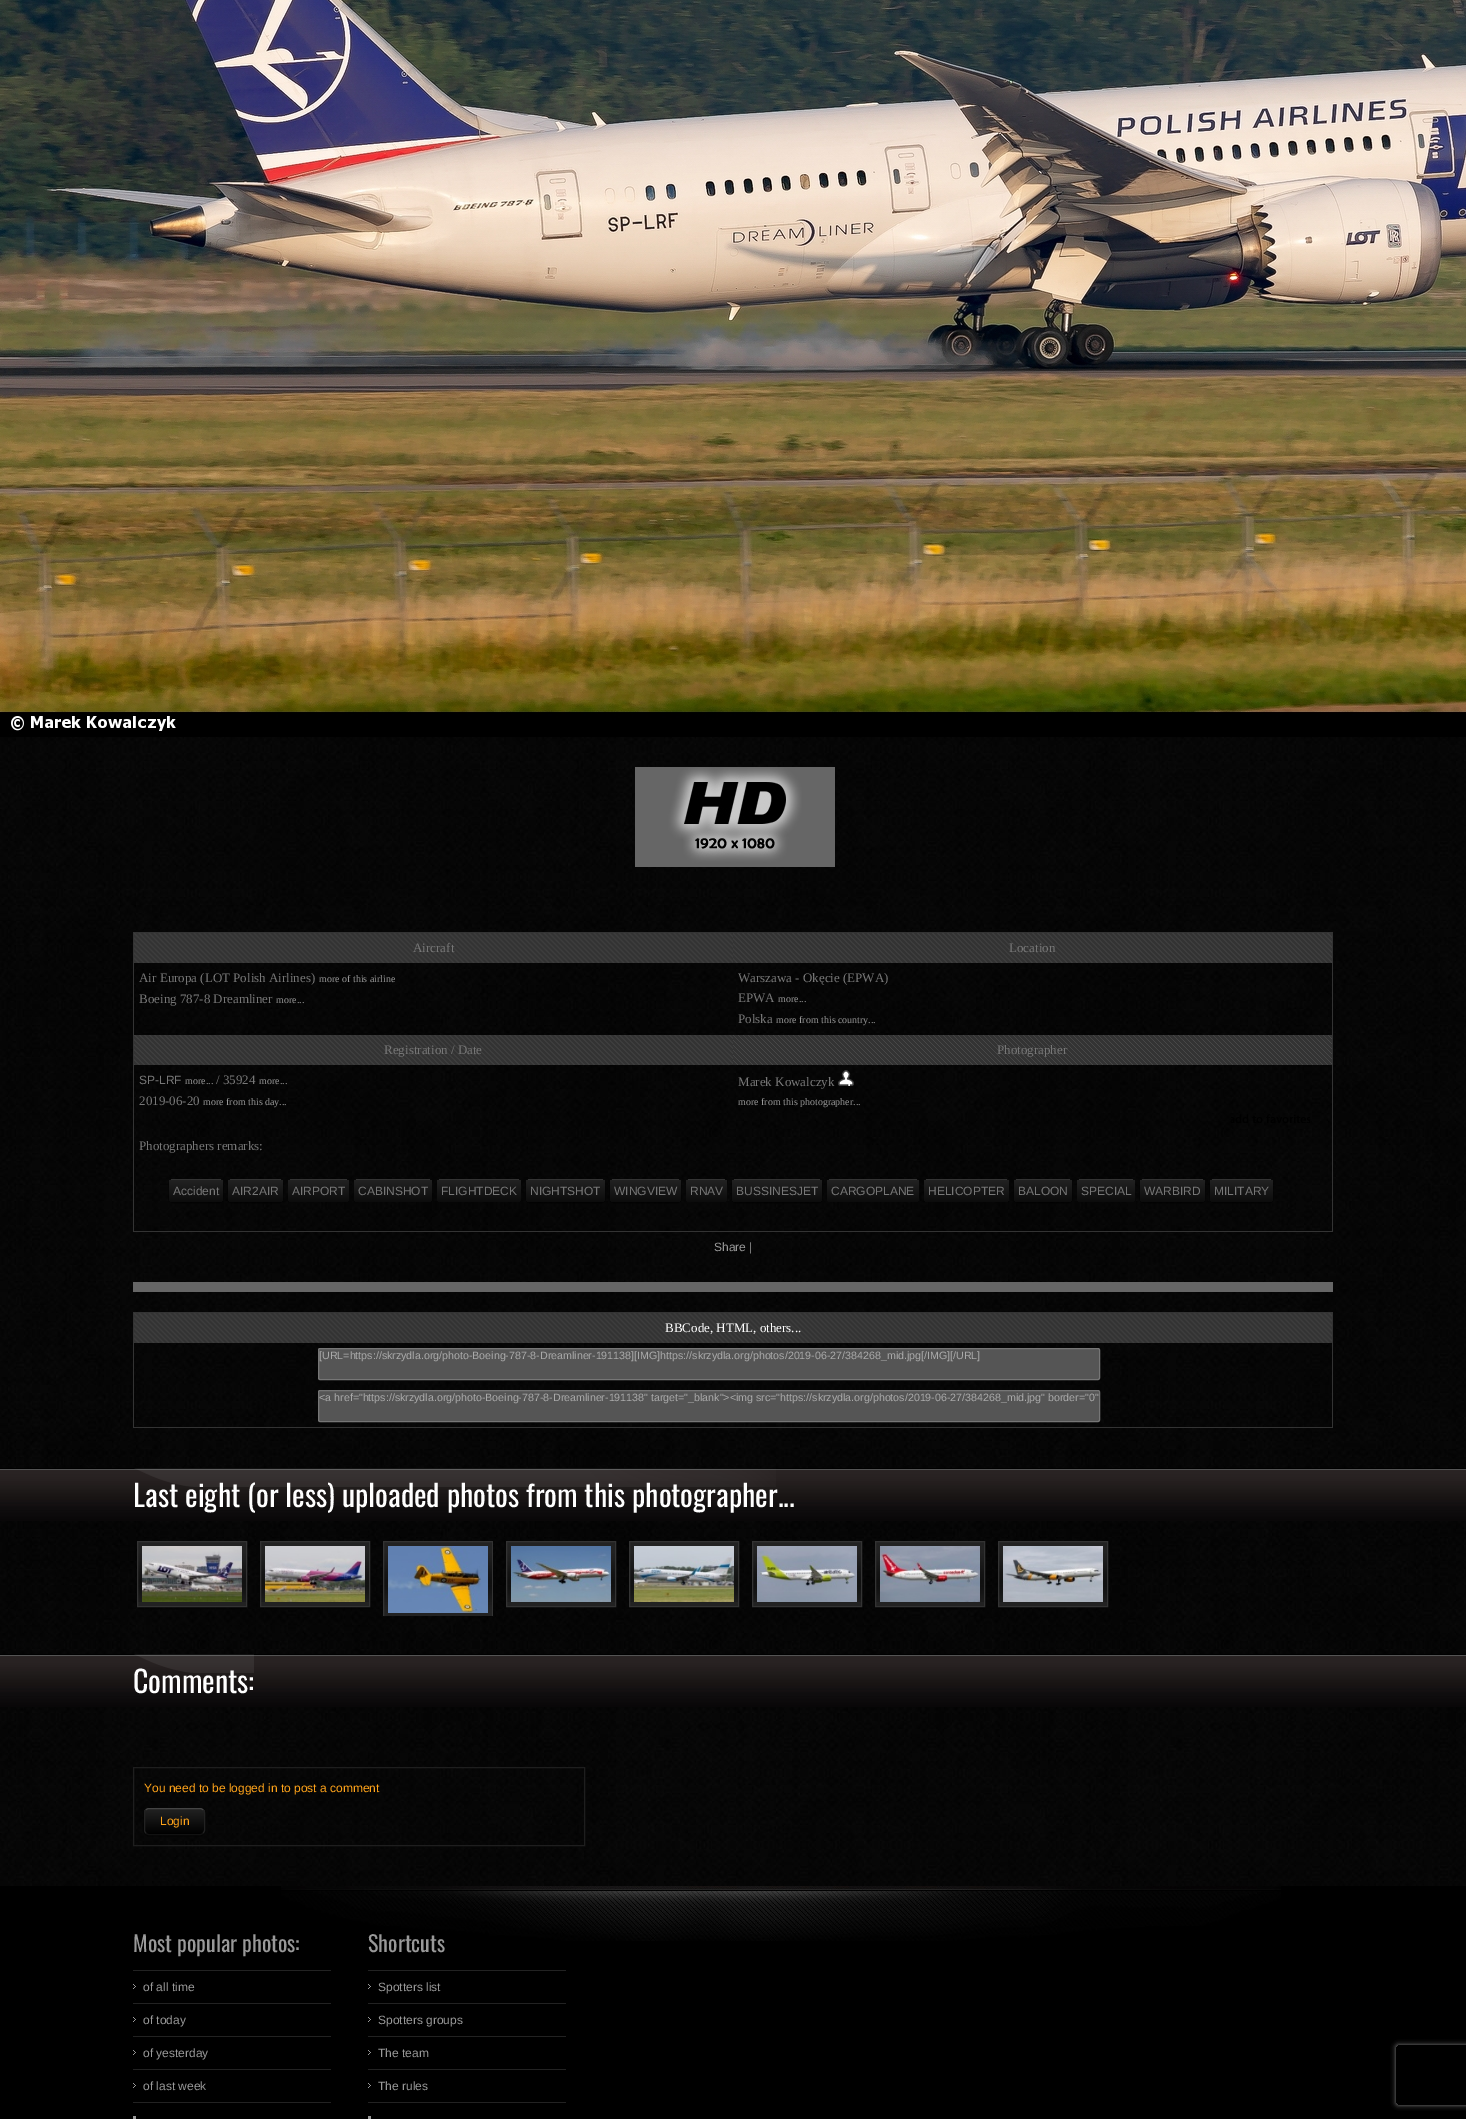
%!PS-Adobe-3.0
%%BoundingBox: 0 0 1466 2119
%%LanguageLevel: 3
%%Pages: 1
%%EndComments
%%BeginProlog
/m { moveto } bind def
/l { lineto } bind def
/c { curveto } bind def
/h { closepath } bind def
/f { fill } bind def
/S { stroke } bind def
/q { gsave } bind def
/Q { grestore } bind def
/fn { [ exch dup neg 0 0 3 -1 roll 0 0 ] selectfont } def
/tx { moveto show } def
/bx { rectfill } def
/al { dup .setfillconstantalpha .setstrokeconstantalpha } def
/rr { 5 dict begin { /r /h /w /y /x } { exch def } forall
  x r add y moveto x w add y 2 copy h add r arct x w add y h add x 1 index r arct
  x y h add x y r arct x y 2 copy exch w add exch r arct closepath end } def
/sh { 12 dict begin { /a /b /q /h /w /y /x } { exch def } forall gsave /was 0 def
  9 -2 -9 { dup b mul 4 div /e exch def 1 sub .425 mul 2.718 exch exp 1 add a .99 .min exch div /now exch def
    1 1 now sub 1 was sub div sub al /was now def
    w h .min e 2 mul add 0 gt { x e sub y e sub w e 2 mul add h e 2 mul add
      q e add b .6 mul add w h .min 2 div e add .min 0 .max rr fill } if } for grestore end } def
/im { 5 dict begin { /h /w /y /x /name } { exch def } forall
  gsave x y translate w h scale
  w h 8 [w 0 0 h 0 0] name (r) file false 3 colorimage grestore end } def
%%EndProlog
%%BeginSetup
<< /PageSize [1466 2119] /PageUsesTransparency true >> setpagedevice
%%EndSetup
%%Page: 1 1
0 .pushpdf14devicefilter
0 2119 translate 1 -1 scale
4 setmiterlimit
1 setgray
0 0 1466 2119 bx
(image0.raw) 0 737 1466 1149 im
(image1.raw) 0 0 1466 737 im
(image2.raw) 635 767 200 100 im
0.2 setgray
133 932 1200 1 bx
1332 932 1 300 bx
133 1231 1200 1 bx
133 932 1 300 bx
(image3.raw) 134 933 599 30 im
/LiberationSerif-Regular 13 fn
0.467 setgray
(Aircraft) 413 952 tx
(image4.raw) 733 933 599 30 im
(Location) 1009 952 tx
(Air Europa \(LOT Polish Airlines\)) 139 982 tx
/LiberationSerif-Regular 10 fn
0.6 setgray
(more of this airline) 319 982 tx
/LiberationSerif-Regular 13 fn
0.467 setgray
(Boeing 787-8 Dreamliner) 139 1003 tx
/LiberationSerif-Regular 10 fn
0.6 setgray
(more...) 276 1003 tx
/LiberationSerif-Regular 13 fn
0.467 setgray
(Warszawa - Okęcie \(EPWA\)) 738 982 tx
(EPWA) 738 1002 tx
/LiberationSerif-Regular 10 fn
0.6 setgray
(more...) 778 1002 tx
/LiberationSerif-Regular 13 fn
0.467 setgray
(Polska) 738 1023 tx
/LiberationSerif-Regular 10 fn
0.6 setgray
(more from this country...) 776 1023 tx
(image5.raw) 134 1035 599 30 im
/LiberationSerif-Regular 13 fn
0.467 setgray
(Registration / Date) 384 1054 tx
(image6.raw) 733 1035 599 30 im
(Photographer) 997 1054 tx
/Arimo-Regular 12 fn
(SP-LRF) 139 1084 tx
/LiberationSerif-Regular 10 fn
0.6 setgray
(more...) 185 1084 tx
/LiberationSerif-Regular 13 fn
0.467 setgray
(/ 35924) 216 1084 tx
/LiberationSerif-Regular 10 fn
0.6 setgray
(more...) 259 1084 tx
/LiberationSerif-Regular 13 fn
0.467 setgray
(2019-06-20) 139 1105 tx
/LiberationSerif-Regular 10 fn
0.6 setgray
(more from this day...) 203 1105 tx
/LiberationSerif-Regular 13 fn
0.467 setgray
(Marek Kowalczyk) 738 1086 tx
(image7.raw) 838 1070 16 16 im
/LiberationSerif-Regular 10 fn
0.6 setgray
(more from this photographer...) 738 1105 tx
(image8.raw) 1231 1114 79 9 im
/LiberationSerif-Regular 13 fn
0.467 setgray
(Photographers remarks:) 139 1150 tx
0 setgray
169 1180 54 23 4 1 1 sh
0.067 setgray
169 1179 54 23 4 rr f
q
169 1179 54 23 4 rr clip newpath
q 169 1180 m 223 1180 l 223 1198 l 223 1200 221 1202 219 1202 c 173 1202 l 171 1202 169 1200 169 1198 c h clip newpath
<< /ShadingType 2 /ColorSpace /DeviceRGB /Coords [169 1180 169 1202] /Extend [true true] /Function << /FunctionType 2 /Domain [0 1] /C0 [0.133 0.133 0.133] /C1 [0.047 0.047 0.047] /N 1 >> >> shfill Q
Q
/Arimo-Regular 12 fn
0.467 setgray
(Accident) 173 1195 tx
0.2 setgray
171 1179 50 1 bx
0 setgray
228 1180 55 23 4 1 1 sh
0.067 setgray
228 1179 55 23 4 rr f
q
228 1179 55 23 4 rr clip newpath
q 228 1180 m 283 1180 l 283 1198 l 283 1200 281 1202 279 1202 c 232 1202 l 230 1202 228 1200 228 1198 c h clip newpath
<< /ShadingType 2 /ColorSpace /DeviceRGB /Coords [228 1180 228 1202] /Extend [true true] /Function << /FunctionType 2 /Domain [0 1] /C0 [0.133 0.133 0.133] /C1 [0.047 0.047 0.047] /N 1 >> >> shfill Q
Q
0.467 setgray
(AIR2AIR) 232 1195 tx
0.2 setgray
230 1179 51 1 bx
0.067 setgray
288 1179 61 23 4 rr f
q
288 1179 61 23 4 rr clip newpath
q 288 1180 m 349 1180 l 349 1198 l 349 1200 347 1202 345 1202 c 292 1202 l 290 1202 288 1200 288 1198 c h clip newpath
<< /ShadingType 2 /ColorSpace /DeviceRGB /Coords [288 1180 288 1202] /Extend [true true] /Function << /FunctionType 2 /Domain [0 1] /C0 [0.133 0.133 0.133] /C1 [0.047 0.047 0.047] /N 1 >> >> shfill Q
Q
0.467 setgray
(AIRPORT) 292 1195 tx
0.2 setgray
290 1179 57 1 bx
0.067 setgray
354 1179 78 23 4 rr f
q
354 1179 78 23 4 rr clip newpath
q 354 1180 m 432 1180 l 432 1198 l 432 1200 430 1202 428 1202 c 358 1202 l 356 1202 354 1200 354 1198 c h clip newpath
<< /ShadingType 2 /ColorSpace /DeviceRGB /Coords [354 1180 354 1202] /Extend [true true] /Function << /FunctionType 2 /Domain [0 1] /C0 [0.133 0.133 0.133] /C1 [0.047 0.047 0.047] /N 1 >> >> shfill Q
Q
0.467 setgray
(CABINSHOT) 358 1195 tx
0.2 setgray
356 1179 74 1 bx
0.067 setgray
437 1179 84 23 4 rr f
q
437 1179 84 23 4 rr clip newpath
q 437 1180 m 521 1180 l 521 1198 l 521 1200 519 1202 517 1202 c 441 1202 l 439 1202 437 1200 437 1198 c h clip newpath
<< /ShadingType 2 /ColorSpace /DeviceRGB /Coords [437 1180 437 1202] /Extend [true true] /Function << /FunctionType 2 /Domain [0 1] /C0 [0.133 0.133 0.133] /C1 [0.047 0.047 0.047] /N 1 >> >> shfill Q
Q
0.467 setgray
(FLIGHTDECK) 441 1195 tx
0.2 setgray
439 1179 80 1 bx
0 setgray
526 1180 79 23 4 1 1 sh
0.067 setgray
526 1179 79 23 4 rr f
q
526 1179 79 23 4 rr clip newpath
q 526 1180 m 605 1180 l 605 1198 l 605 1200 603 1202 601 1202 c 530 1202 l 528 1202 526 1200 526 1198 c h clip newpath
<< /ShadingType 2 /ColorSpace /DeviceRGB /Coords [526 1180 526 1202] /Extend [true true] /Function << /FunctionType 2 /Domain [0 1] /C0 [0.133 0.133 0.133] /C1 [0.047 0.047 0.047] /N 1 >> >> shfill Q
Q
0.467 setgray
(NIGHTSHOT) 530 1195 tx
0.2 setgray
528 1179 75 1 bx
0 setgray
610 1180 71 23 4 1 1 sh
0.067 setgray
610 1179 71 23 4 rr f
q
610 1179 71 23 4 rr clip newpath
q 610 1180 m 681 1180 l 681 1198 l 681 1200 679 1202 677 1202 c 614 1202 l 612 1202 610 1200 610 1198 c h clip newpath
<< /ShadingType 2 /ColorSpace /DeviceRGB /Coords [610 1180 610 1202] /Extend [true true] /Function << /FunctionType 2 /Domain [0 1] /C0 [0.133 0.133 0.133] /C1 [0.047 0.047 0.047] /N 1 >> >> shfill Q
Q
0.467 setgray
(WINGVIEW) 614 1195 tx
0.2 setgray
612 1179 67 1 bx
0.067 setgray
686 1179 41 23 4 rr f
q
686 1179 41 23 4 rr clip newpath
q 686 1180 m 727 1180 l 727 1198 l 727 1200 725 1202 723 1202 c 690 1202 l 688 1202 686 1200 686 1198 c h clip newpath
<< /ShadingType 2 /ColorSpace /DeviceRGB /Coords [686 1180 686 1202] /Extend [true true] /Function << /FunctionType 2 /Domain [0 1] /C0 [0.133 0.133 0.133] /C1 [0.047 0.047 0.047] /N 1 >> >> shfill Q
Q
0.467 setgray
(RNAV) 690 1195 tx
0.2 setgray
688 1179 37 1 bx
0 setgray
732 1180 90 23 4 1 1 sh
0.067 setgray
732 1179 90 23 4 rr f
q
732 1179 90 23 4 rr clip newpath
q 732 1180 m 822 1180 l 822 1198 l 822 1200 820 1202 818 1202 c 736 1202 l 734 1202 732 1200 732 1198 c h clip newpath
<< /ShadingType 2 /ColorSpace /DeviceRGB /Coords [732 1180 732 1202] /Extend [true true] /Function << /FunctionType 2 /Domain [0 1] /C0 [0.133 0.133 0.133] /C1 [0.047 0.047 0.047] /N 1 >> >> shfill Q
Q
0.467 setgray
(BUSSINESJET) 736 1195 tx
0.2 setgray
734 1179 86 1 bx
0.067 setgray
827 1179 92 23 4 rr f
q
827 1179 92 23 4 rr clip newpath
q 827 1180 m 919 1180 l 919 1198 l 919 1200 917 1202 915 1202 c 831 1202 l 829 1202 827 1200 827 1198 c h clip newpath
<< /ShadingType 2 /ColorSpace /DeviceRGB /Coords [827 1180 827 1202] /Extend [true true] /Function << /FunctionType 2 /Domain [0 1] /C0 [0.133 0.133 0.133] /C1 [0.047 0.047 0.047] /N 1 >> >> shfill Q
Q
0.467 setgray
(CARGOPLANE) 831 1195 tx
0.2 setgray
829 1179 88 1 bx
0.067 setgray
924 1179 85 23 4 rr f
q
924 1179 85 23 4 rr clip newpath
q 924 1180 m 1009 1180 l 1009 1198 l 1009 1200 1007 1202 1005 1202 c 928 1202 l 926 1202 924 1200 924 1198 c h clip newpath
<< /ShadingType 2 /ColorSpace /DeviceRGB /Coords [924 1180 924 1202] /Extend [true true] /Function << /FunctionType 2 /Domain [0 1] /C0 [0.133 0.133 0.133] /C1 [0.047 0.047 0.047] /N 1 >> >> shfill Q
Q
0.467 setgray
(HELICOPTER) 928 1195 tx
0.2 setgray
926 1179 81 1 bx
0 setgray
1014 1180 58 23 4 1 1 sh
0.067 setgray
1014 1179 58 23 4 rr f
q
1014 1179 58 23 4 rr clip newpath
q 1014 1180 m 1072 1180 l 1072 1198 l 1072 1200 1070 1202 1068 1202 c 1018 1202 l 1016 1202 1014 1200 1014 1198 c h clip newpath
<< /ShadingType 2 /ColorSpace /DeviceRGB /Coords [1014 1180 1014 1202] /Extend [true true] /Function << /FunctionType 2 /Domain [0 1] /C0 [0.133 0.133 0.133] /C1 [0.047 0.047 0.047] /N 1 >> >> shfill Q
Q
0.467 setgray
(BALOON) 1018 1195 tx
0.2 setgray
1016 1179 54 1 bx
0.067 setgray
1077 1179 58 23 4 rr f
q
1077 1179 58 23 4 rr clip newpath
q 1077 1180 m 1135 1180 l 1135 1198 l 1135 1200 1133 1202 1131 1202 c 1081 1202 l 1079 1202 1077 1200 1077 1198 c h clip newpath
<< /ShadingType 2 /ColorSpace /DeviceRGB /Coords [1077 1180 1077 1202] /Extend [true true] /Function << /FunctionType 2 /Domain [0 1] /C0 [0.133 0.133 0.133] /C1 [0.047 0.047 0.047] /N 1 >> >> shfill Q
Q
0.467 setgray
(SPECIAL) 1081 1195 tx
0.2 setgray
1079 1179 54 1 bx
0 setgray
1140 1180 65 23 4 1 1 sh
0.067 setgray
1140 1179 65 23 4 rr f
q
1140 1179 65 23 4 rr clip newpath
q 1140 1180 m 1205 1180 l 1205 1198 l 1205 1200 1203 1202 1201 1202 c 1144 1202 l 1142 1202 1140 1200 1140 1198 c h clip newpath
<< /ShadingType 2 /ColorSpace /DeviceRGB /Coords [1140 1180 1140 1202] /Extend [true true] /Function << /FunctionType 2 /Domain [0 1] /C0 [0.133 0.133 0.133] /C1 [0.047 0.047 0.047] /N 1 >> >> shfill Q
Q
0.467 setgray
(WARBIRD) 1144 1195 tx
0.2 setgray
1142 1179 61 1 bx
0 setgray
1210 1180 63 23 4 1 1 sh
0.067 setgray
1210 1179 63 23 4 rr f
q
1210 1179 63 23 4 rr clip newpath
q 1210 1180 m 1273 1180 l 1273 1198 l 1273 1200 1271 1202 1269 1202 c 1214 1202 l 1212 1202 1210 1200 1210 1198 c h clip newpath
<< /ShadingType 2 /ColorSpace /DeviceRGB /Coords [1210 1180 1210 1202] /Extend [true true] /Function << /FunctionType 2 /Domain [0 1] /C0 [0.133 0.133 0.133] /C1 [0.047 0.047 0.047] /N 1 >> >> shfill Q
Q
0.467 setgray
(MILITARY) 1214 1195 tx
0.2 setgray
1212 1179 59 1 bx
0.6 setgray
(Share) 714 1251 tx
0.467 setgray
(|) 749 1251 tx
0.4 setgray
133 1282 1200 10 bx
0.2 setgray
133 1312 1200 1 bx
1332 1312 1 116 bx
133 1427 1200 1 bx
133 1312 1 116 bx
(image9.raw) 134 1313 1198 30 im
/LiberationSerif-Regular 13 fn
1 setgray
(BBCode, HTML, others...) 665 1332 tx
0.333 setgray
318.5 1348.5 781 31 1.5 rr q f Q
0.463 setgray
S
/LiberationSans-Regular 10.67 fn
0.667 setgray
([URL=https://skrzydla.org/photo-Boeing-787-8-Dreamliner-191138][IMG]https://skrzydla.org/photos/2019-06-27/384268_mid.jpg[/IMG][/URL]) 319 1359 tx
0.333 setgray
318.5 1390.5 781 31 1.5 rr q f Q
0.463 setgray
S
0.667 setgray
(<a href="https://skrzydla.org/photo-Boeing-787-8-Dreamliner-191138" target="_blank"><img src="https://skrzydla.org/photos/2019-06-27/384268_mid.jpg" border="0") 319 1401 tx
(image10.raw) 0 1468 1466 53 im
(image11.raw) 134 1468 642 19 im
/Oswald-Regular 30 fn
1 setgray
(Last eight \(or less\) uploaded photos from this photographer...) 133 1507 tx
q
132 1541 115 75 rectclip
0 setgray
138 1542 110 66 0 2 1 sh
Q
0.133 setgray
138 1542 108 64 bx
(image12.raw) 138 1546 108 56 im
0.2 setgray
137.5 1541.5 109 65 rectstroke
q
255 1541 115 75 rectclip
0 setgray
261 1542 110 66 0 2 1 sh
Q
0.133 setgray
261 1542 108 64 bx
(image13.raw) 261 1546 108 56 im
0.2 setgray
260.5 1541.5 109 65 rectstroke
q
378 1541 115 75 rectclip
0 setgray
384 1542 110 77 0 2 1 sh
Q
0.133 setgray
384 1542 108 74 bx
(image14.raw) 384 1546 108 67 im
q
378 1541 115 75 rectclip
0.2 setgray
383.5 1541.5 109 76 rectstroke
Q
507 1542 108 64 bx
(image15.raw) 507 1546 108 56 im
0.2 setgray
506.5 1541.5 109 65 rectstroke
q
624 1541 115 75 rectclip
0 setgray
630 1542 110 66 0 2 1 sh
Q
0.133 setgray
630 1542 108 64 bx
(image16.raw) 630 1546 108 56 im
0.2 setgray
629.5 1541.5 109 65 rectstroke
q
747 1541 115 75 rectclip
0 setgray
753 1542 110 66 0 2 1 sh
Q
0.133 setgray
753 1542 108 64 bx
(image17.raw) 753 1546 108 56 im
0.2 setgray
752.5 1541.5 109 65 rectstroke
q
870 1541 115 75 rectclip
0 setgray
876 1542 110 66 0 2 1 sh
Q
0.133 setgray
876 1542 108 64 bx
(image18.raw) 876 1546 108 56 im
0.2 setgray
875.5 1541.5 109 65 rectstroke
0.133 setgray
999 1542 108 64 bx
(image19.raw) 999 1546 108 56 im
0.2 setgray
998.5 1541.5 109 65 rectstroke
(image10.raw) 0 1654 1466 53 im
(image20.raw) 134 1654 120 19 im
1 setgray
(Comments:) 133 1693 tx
0.118 setgray
133.5 1767.5 451 78 rectstroke
/Arimo-Regular 12 fn
1 0.639 0.098 setrgbcolor
(You need to be logged in to post a comment) 144 1792 tx
0 setgray
144 1809 61 27 5 1 1 sh
q
144 1808 61 27 5 rr clip newpath
q 144 1809 m 205 1809 l 205 1834 l 144 1834 l h clip newpath
<< /ShadingType 2 /ColorSpace /DeviceRGB /Coords [145 1809 145 1834] /Extend [true true] /Function << /FunctionType 2 /Domain [0 1] /C0 [0.133 0.133 0.133] /C1 [0 0 0] /N 1 >> >> shfill Q
Q
0.267 setgray
146 1810 m 146.5 1809 148 1808.5 149 1808.5 c 200 1808.5 l 201 1808.5 202.5 1809 203 1810 c S
0.133 setgray
203 1810 m 204 1810.5 204.5 1812 204.5 1813 c 204.5 1830 l 204.5 1831 204 1832.5 203 1833 c S
0.067 setgray
203 1833 m 202.5 1834 201 1834.5 200 1834.5 c 149 1834.5 l 148 1834.5 146.5 1834 146 1833 c S
0.133 setgray
146 1833 m 145 1832.5 144.5 1831 144.5 1830 c 144.5 1813 l 144.5 1812 145 1810.5 146 1810 c S
1 0.639 0.098 setrgbcolor
(Login) 160 1825 tx
0 setgray
0 1886 1466 233 bx
(image21.raw) 281 1886 1000 55 im
/Oswald-Regular 22 fn
0.6 setgray
(Most popular photos:) 133 1952 tx
0.133 setgray
133 1970 198 1 bx
(image22.raw) 133 1984 3 5 im
/Arimo-Regular 12 fn
0.6 setgray
(of all time) 143 1991 tx
0.133 setgray
133 2003 198 1 bx
(image22.raw) 133 2017 3 5 im
0.6 setgray
(of today) 143 2024 tx
0.133 setgray
133 2036 198 1 bx
(image22.raw) 133 2050 3 5 im
0.6 setgray
(of yesterday) 143 2057 tx
0.133 setgray
133 2069 198 1 bx
(image22.raw) 133 2083 3 5 im
0.6 setgray
(of last week) 143 2090 tx
0.133 setgray
133 2102 198 1 bx
0.6 setgray
133 2116 3 3 bx
/Oswald-Regular 22 fn
(Shortcuts) 368 1952 tx
0.133 setgray
368 1970 198 1 bx
(image22.raw) 368 1984 3 5 im
/Arimo-Regular 12 fn
0.6 setgray
(Spotters list) 378 1991 tx
0.133 setgray
368 2003 198 1 bx
(image22.raw) 368 2017 3 5 im
0.6 setgray
(Spotters groups) 378 2024 tx
0.133 setgray
368 2036 198 1 bx
(image22.raw) 368 2050 3 5 im
0.6 setgray
(The team) 378 2057 tx
0.133 setgray
368 2069 198 1 bx
(image22.raw) 368 2083 3 5 im
0.6 setgray
(The rules) 378 2090 tx
0.133 setgray
368 2102 198 1 bx
0.6 setgray
368 2116 3 3 bx
q
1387 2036 m 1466 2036 l 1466 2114 l 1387 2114 l h 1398 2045 m 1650 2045 l 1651 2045 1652 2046 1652 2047 c 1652 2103 l 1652 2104 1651 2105 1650 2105 c 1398 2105 l 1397 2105 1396 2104 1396 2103 c 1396 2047 l 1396 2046 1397 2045 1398 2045 c h eoclip newpath
0.502 setgray
1396 2045 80 60 2 2.5 1 sh
Q
.poppdf14devicefilter showpage
%%EOF
